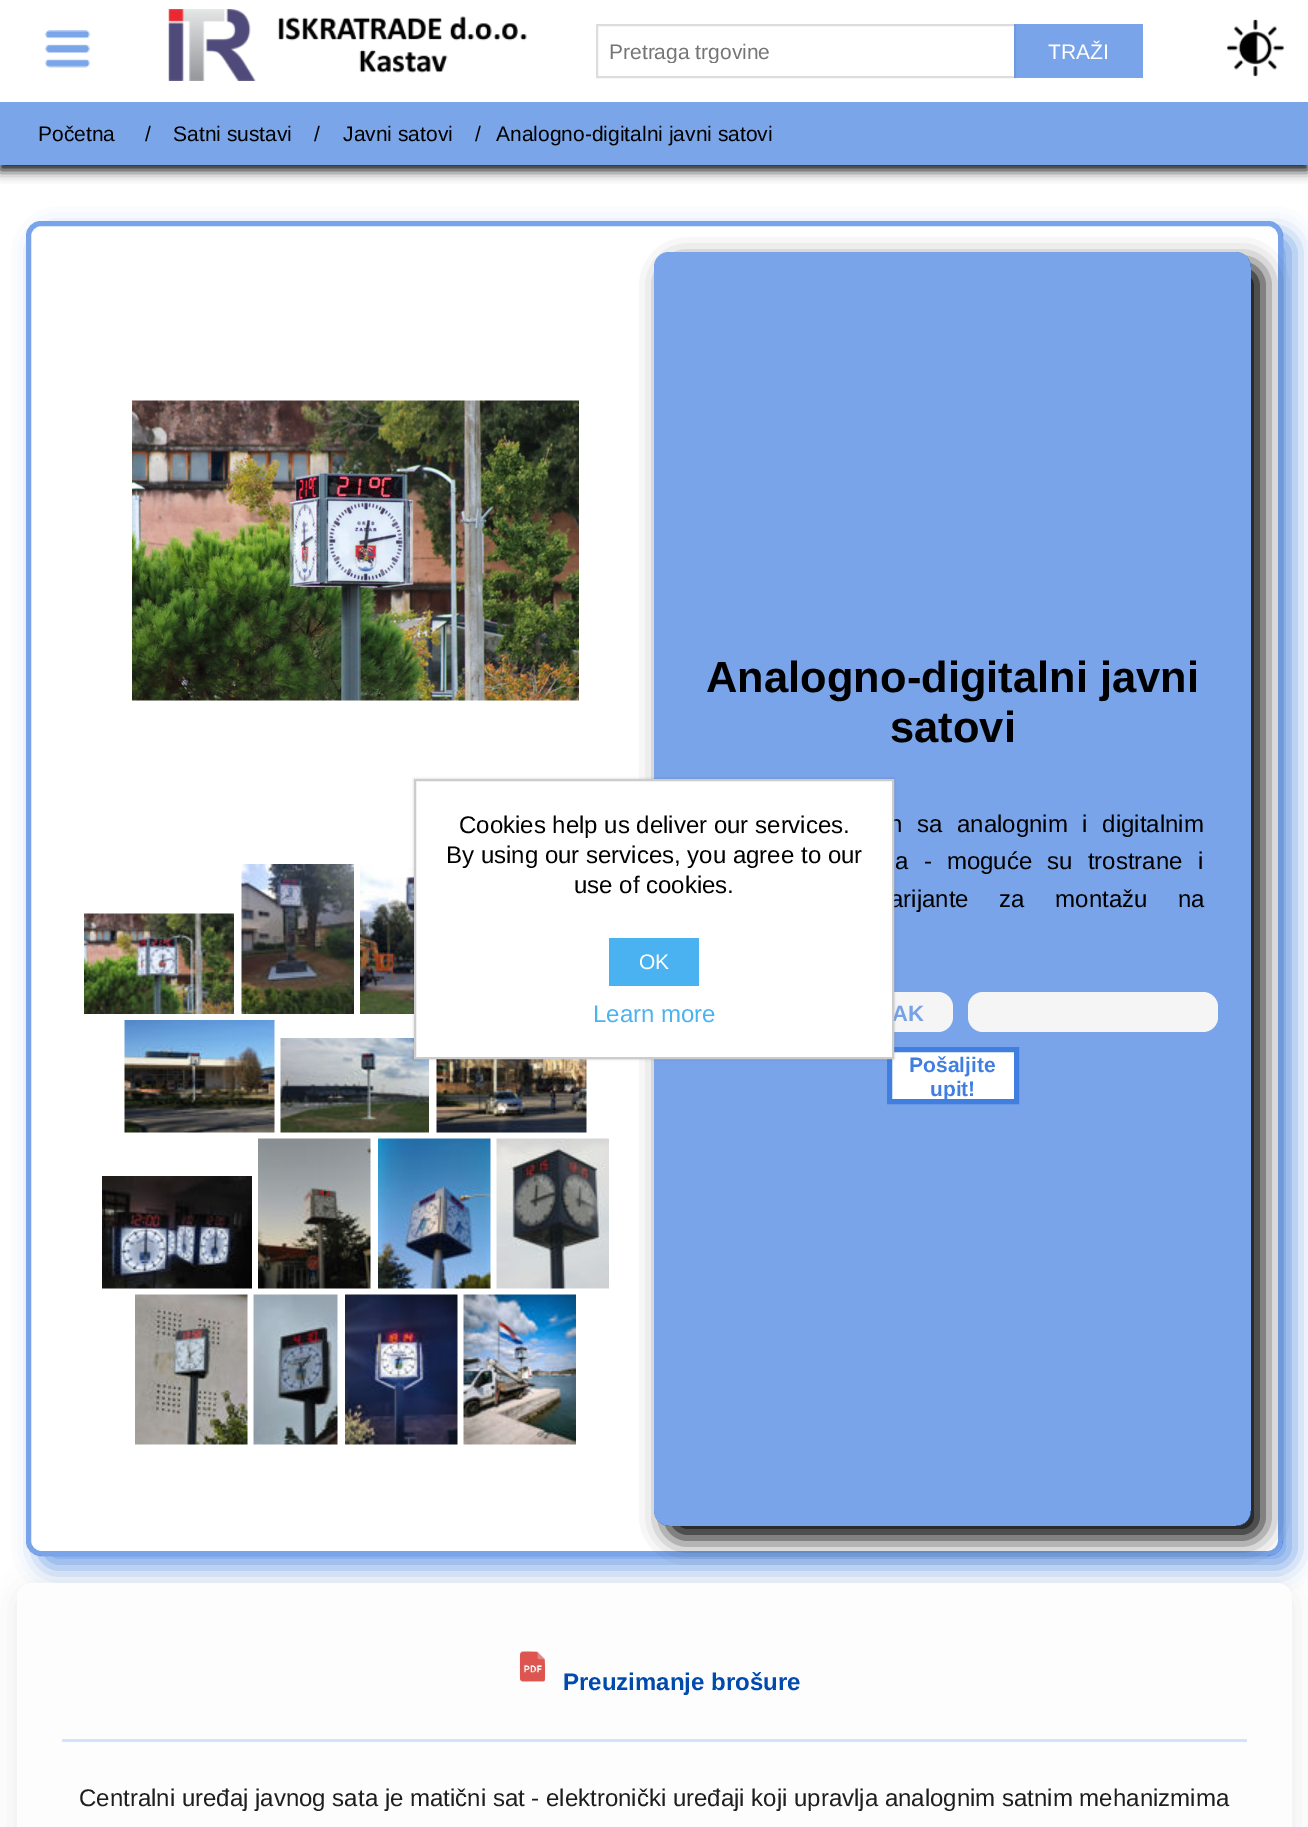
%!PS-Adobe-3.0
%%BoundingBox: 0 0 1308 1827
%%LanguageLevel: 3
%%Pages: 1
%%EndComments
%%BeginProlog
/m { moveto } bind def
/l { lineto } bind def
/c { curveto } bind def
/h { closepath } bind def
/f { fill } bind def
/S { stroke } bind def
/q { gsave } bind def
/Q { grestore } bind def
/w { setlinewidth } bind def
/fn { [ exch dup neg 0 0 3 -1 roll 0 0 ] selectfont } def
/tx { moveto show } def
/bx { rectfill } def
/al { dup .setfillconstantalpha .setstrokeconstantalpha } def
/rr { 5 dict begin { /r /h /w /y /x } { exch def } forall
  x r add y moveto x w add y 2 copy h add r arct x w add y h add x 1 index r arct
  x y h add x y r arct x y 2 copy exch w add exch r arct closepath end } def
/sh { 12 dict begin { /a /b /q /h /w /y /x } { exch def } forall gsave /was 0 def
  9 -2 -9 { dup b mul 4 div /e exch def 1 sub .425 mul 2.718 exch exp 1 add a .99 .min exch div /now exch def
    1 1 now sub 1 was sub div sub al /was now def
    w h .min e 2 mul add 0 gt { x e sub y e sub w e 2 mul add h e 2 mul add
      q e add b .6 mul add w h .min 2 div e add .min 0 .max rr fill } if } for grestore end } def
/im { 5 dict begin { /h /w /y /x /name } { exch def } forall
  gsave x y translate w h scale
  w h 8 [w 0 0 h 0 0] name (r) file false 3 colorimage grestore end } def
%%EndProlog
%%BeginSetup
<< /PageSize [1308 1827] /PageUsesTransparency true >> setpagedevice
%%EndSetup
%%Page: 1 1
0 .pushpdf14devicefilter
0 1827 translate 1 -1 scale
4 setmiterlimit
1 setgray
0 0 1308 1827 bx
0 setgray
0 107 1308 63 0 6 1 sh
1 setgray
0 93 1308 9 bx
(image0.raw) 45 30 45 38 im
(image1.raw) 168 9 359 72 im
0.867 setgray
2 w
597 25 418 52 rectstroke
q
609 39 393 24 rectclip
/LiberationSans-Regular 21 fn
0.459 setgray
(Pretraga trgovine) 609 59 tx
Q
0.7 al
0.251 0.494 0.875 setrgbcolor
1014 24 129 54 bx
/LiberationSans-Regular 21 fn
1 al
1 setgray
(TRAŽI) 1048 59 tx
(image2.raw) 1227 19 57 58 im
0.478 0.647 0.914 setrgbcolor
0 102 1308 63 bx
0 setgray
(Početna) 38 141 tx
(/) 145 141 tx
(Satni sustavi) 173 141 tx
(/) 314 141 tx
(Javni satovi) 343 141 tx
(/) 475 141 tx
(Analogno-digitalni javni satovi) 496 141 tx
q
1 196 m 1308 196 l 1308 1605 l 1 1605 l h 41 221 m 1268 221 l 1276.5 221 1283 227.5 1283 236 c 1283 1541 l 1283 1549.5 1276.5 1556 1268 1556 c 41 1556 l 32.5 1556 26 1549.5 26 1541 c 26 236 l 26 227.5 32.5 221 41 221 c h eoclip newpath
0.251 0.494 0.875 setrgbcolor
38 233 1257 1335 15 12 0.7 sh
Q
0.7 al
0.251 0.494 0.875 setrgbcolor
5 w
28.5 223.5 1252 1330 12.5 rr S
1 al
(image3.raw) 132 400 447 301 im
(image4.raw) 84 913 150 101 im
(image5.raw) 241 864 113 150 im
(image6.raw) 360 866 54 148 im
(image7.raw) 124 1020 151 113 im
(image8.raw) 280 1038 149 95 im
(image9.raw) 436 1059 151 74 im
(image10.raw) 102 1176 150 113 im
(image11.raw) 258 1138 113 151 im
(image12.raw) 378 1138 113 151 im
(image13.raw) 496 1138 113 151 im
(image14.raw) 135 1294 113 151 im
(image15.raw) 253 1294 85 151 im
(image16.raw) 345 1294 113 151 im
(image17.raw) 463 1294 113 151 im
q
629 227 m 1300 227 l 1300 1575 l 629 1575 l h 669 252 m 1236 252 l 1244.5 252 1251 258.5 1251 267 c 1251 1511 l 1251 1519.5 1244.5 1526 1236 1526 c 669 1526 l 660.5 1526 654 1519.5 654 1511 c 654 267 l 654 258.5 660.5 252 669 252 c h eoclip newpath
0 setgray
666 264 597 1274 15 12 1 sh
Q
0.7 al
654 252 597 1274 15 rr f
/LiberationSans-Bold 43.5 fn
1 al
0 setgray
(Analogno-digitalni javni) 706 692 tx
(satovi) 890 742 tx
/LiberationSans-Regular 24 fn
889 832 m 8 0 32 (n sa analognim i digitalnim) widthshow
895 869 m 8.5 0 32 (a - moguće su trostrane i) widthshow
890 907 m 24 0 32 (arijante za montažu na) widthshow
0.961 setgray
702 992 251 40 15 rr f
/LiberationSans-Bold 22 fn
0.467 0.635 0.902 setrgbcolor
(AK) 892 1021 tx
0.961 setgray
968 992 250 40 15 rr f
1 setgray
889.5 1049.5 m 1016.5 1049.5 l 1016.5 1101.5 l 889.5 1101.5 l h q f Q
0.251 0.494 0.875 setrgbcolor
S
/LiberationSans-Bold 21 fn
(Pošaljite) 909 1072 tx
(upit!) 930 1096 tx
0 setgray
17 1589 1275 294 15 13.5 0.08 sh
0.992 setgray
17 1583 1275 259 15 rr f
(image18.raw) 519 1651 27 31 im
/LiberationSans-Bold 24 fn
0 0.29 0.678 setrgbcolor
(Preuzimanje brošure) 563 1690 tx
0.831 0.882 1 setrgbcolor
62 1739 1185 3 bx
/LiberationSans-Regular 24 fn
0.118 setgray
(Centralni uređaj javnog sata je matični sat - elektronički uređaji koji upravlja analognim satnim mehanizmima) 79 1806 tx
0 setgray
414 779 480 280 0 1.5 0.15 sh
1 setgray
415 780 m 893 780 l 893 1058 l 415 1058 l h q f Q
0.8 setgray
2 w
S
0 setgray
(Cookies help us deliver our services.) 459 833 tx
(By using our services, you agree to our) 446 863 tx
(use of cookies.) 574 893 tx
0.29 0.698 0.945 setrgbcolor
609 938 90 48 bx
/LiberationSans-Regular 21 fn
1 setgray
(OK) 639 969 tx
/LiberationSans-Regular 24 fn
0.29 0.698 0.945 setrgbcolor
(Learn more) 593 1022 tx
.poppdf14devicefilter showpage
%%EOF
